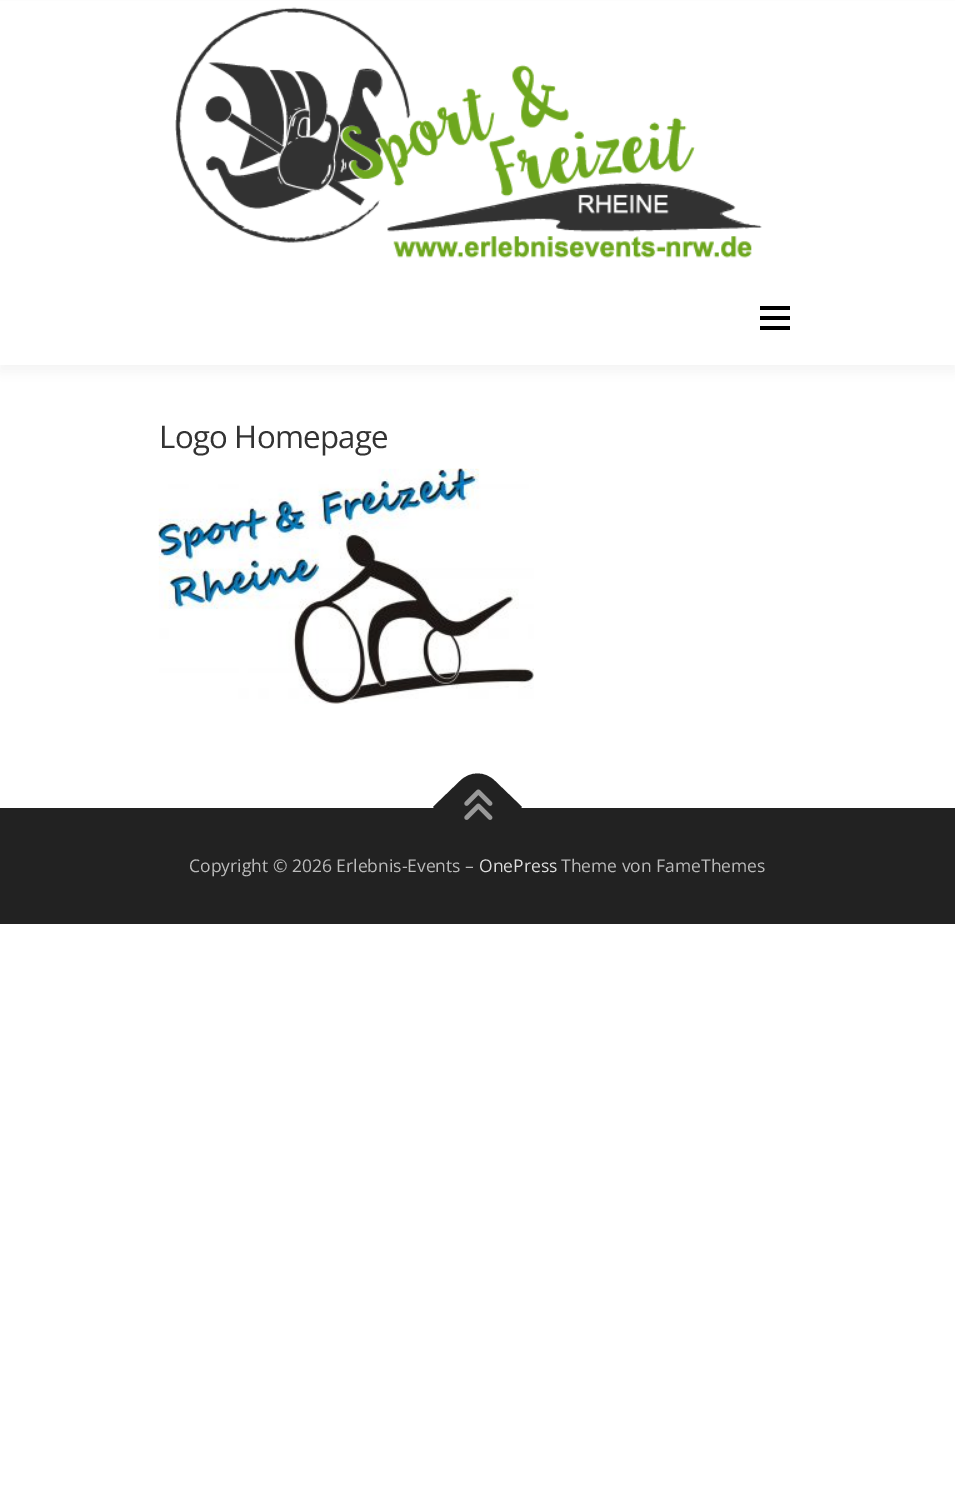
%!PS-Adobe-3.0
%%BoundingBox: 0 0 955 1509
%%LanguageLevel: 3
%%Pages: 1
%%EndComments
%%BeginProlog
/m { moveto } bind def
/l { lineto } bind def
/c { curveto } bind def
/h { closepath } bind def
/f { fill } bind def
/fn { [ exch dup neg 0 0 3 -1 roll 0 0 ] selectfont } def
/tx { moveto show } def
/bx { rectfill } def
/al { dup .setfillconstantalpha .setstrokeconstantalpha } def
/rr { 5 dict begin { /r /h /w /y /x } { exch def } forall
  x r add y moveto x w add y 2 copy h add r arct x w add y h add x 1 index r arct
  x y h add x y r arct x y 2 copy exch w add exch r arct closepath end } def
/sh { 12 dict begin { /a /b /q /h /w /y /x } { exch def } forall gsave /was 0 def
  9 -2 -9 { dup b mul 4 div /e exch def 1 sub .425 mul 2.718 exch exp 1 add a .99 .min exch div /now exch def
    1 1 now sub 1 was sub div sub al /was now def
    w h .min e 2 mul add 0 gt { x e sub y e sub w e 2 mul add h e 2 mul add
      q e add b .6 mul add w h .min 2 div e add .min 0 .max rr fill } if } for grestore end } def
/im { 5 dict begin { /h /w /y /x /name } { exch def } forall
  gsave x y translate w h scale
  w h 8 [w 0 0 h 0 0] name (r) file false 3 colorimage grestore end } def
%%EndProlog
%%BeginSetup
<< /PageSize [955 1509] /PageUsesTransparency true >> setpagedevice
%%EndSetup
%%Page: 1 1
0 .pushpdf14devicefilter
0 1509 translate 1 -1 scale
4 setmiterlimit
1 setgray
0 0 955 1509 bx
0.196 setgray
0 6 955 365 0 6 0.06 sh
1 setgray
0 1 955 364 bx
(image0.raw) 175 7 587 251 im
0 setgray
760 316 30 4 bx
760 306 30 4 bx
760 326 30 4 bx
/OpenSans-Regular 31.25 fn
0.2 setgray
159 448 m -0.75 0 (Logo Homepage) ashow
(image1.raw) 158 468 376 236 im
0.133 setgray
0 808 955 116 bx
433 807 m 460 781 l 470 771 485 771 495 781 c 522 807 l 478 851 l h f
(image2.raw) 464 789 29 31 im
/OpenSans-Regular 17.5 fn
0.733 setgray
(Copyright © 2026 Erlebnis-Events –) 189 872 tx
0.867 setgray
(OnePress) 479 872 tx
0.733 setgray
(Theme von FameThemes) 561 872 tx
.poppdf14devicefilter showpage
%%EOF
